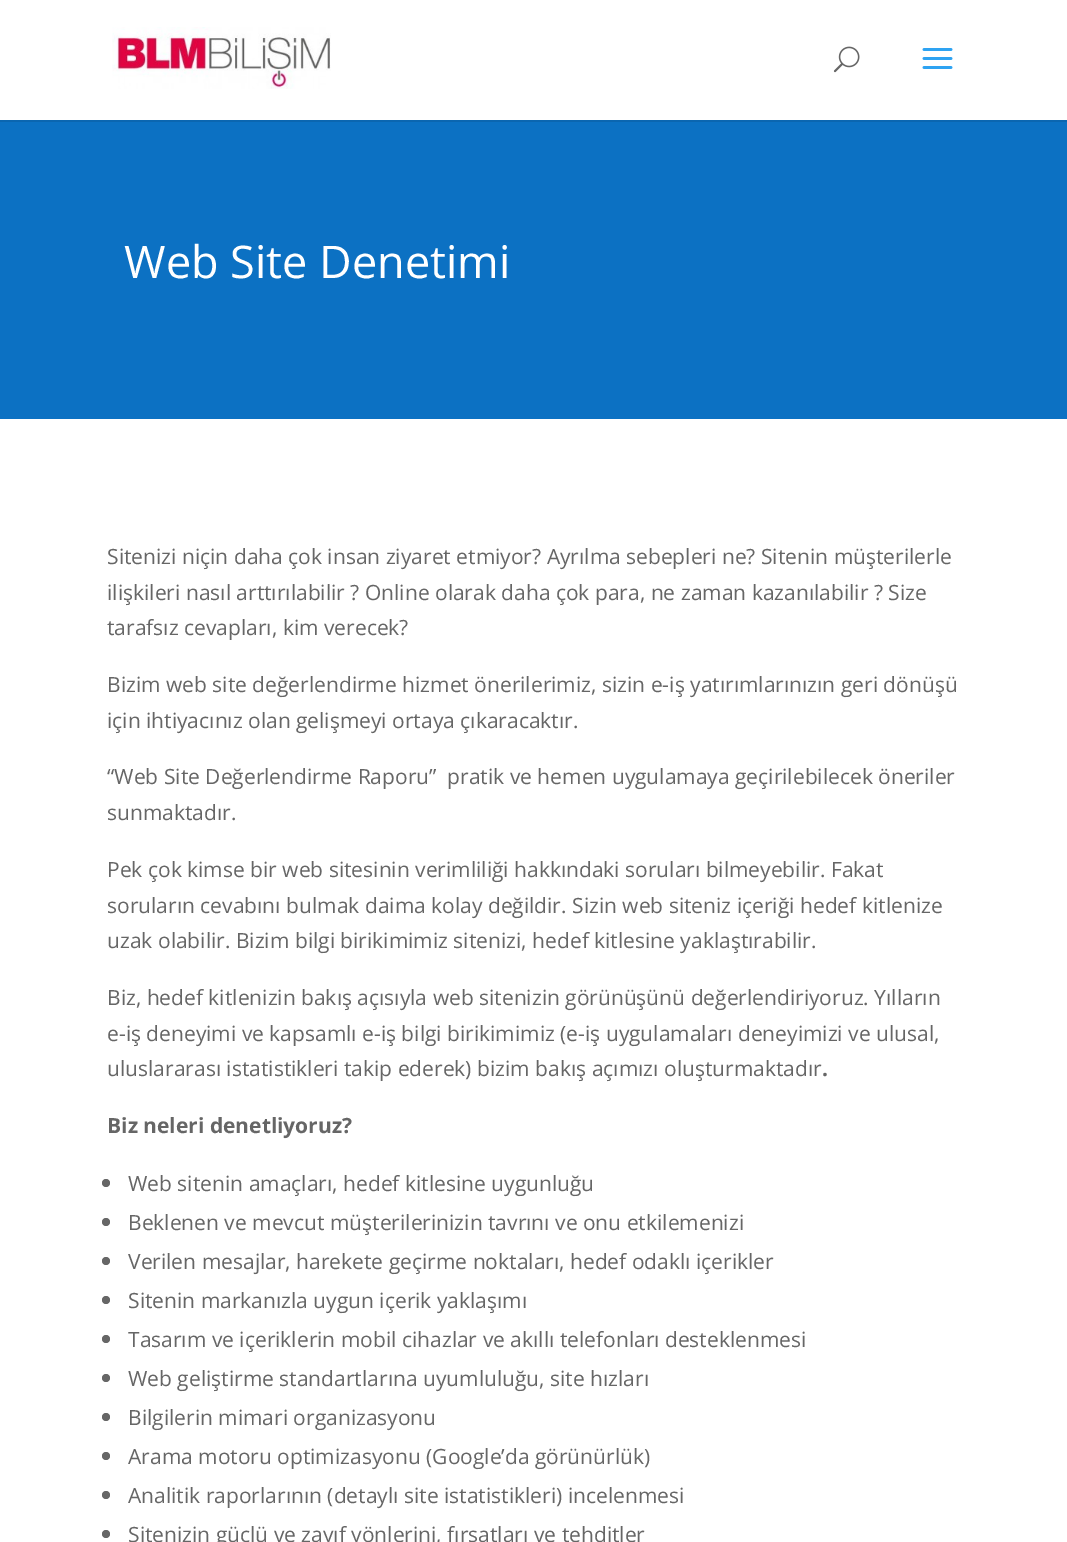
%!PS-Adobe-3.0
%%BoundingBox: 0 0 1067 1542
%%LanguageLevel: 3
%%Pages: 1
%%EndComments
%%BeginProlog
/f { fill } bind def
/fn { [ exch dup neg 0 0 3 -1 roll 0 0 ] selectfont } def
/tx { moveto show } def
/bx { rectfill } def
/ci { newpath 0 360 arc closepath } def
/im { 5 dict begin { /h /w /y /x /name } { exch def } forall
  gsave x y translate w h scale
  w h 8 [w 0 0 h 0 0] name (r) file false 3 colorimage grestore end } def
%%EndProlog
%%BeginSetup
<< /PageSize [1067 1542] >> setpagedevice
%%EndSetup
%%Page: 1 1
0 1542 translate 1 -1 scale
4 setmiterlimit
1 setgray
0 0 1067 1542 bx
0.043 0.4 0.69 setrgbcolor
0 120 1067 2 bx
(image0.raw) 112 27 219 62 im
(image1.raw) 833 46 27 27 im
(image2.raw) 922 48 31 21 im
0.047 0.443 0.765 setrgbcolor
0 122 1067 297 bx
/OpenSans-Regular 45 fn
1 setgray
(Web Site Denetimi) 124 278 tx
/OpenSans-Regular 21 fn
0.4 setgray
(Sitenizi niçin daha çok insan ziyaret etmiyor? Ayrılma sebepleri ne? Sitenin müşterilerle) 107 564 tx
(ilişkileri nasıl arttırılabilir ? Online olarak daha çok para, ne zaman kazanılabilir ? Size) 107 600 tx
(tarafsız cevapları, kim verecek?) 107 635 tx
(Bizim web site değerlendirme hizmet önerilerimiz, sizin e-iş yatırımlarınızın geri dönüşü) 107 692 tx
(için ihtiyacınız olan gelişmeyi ortaya çıkaracaktır.) 107 728 tx
(“Web Site Değerlendirme Raporu”  pratik ve hemen uygulamaya geçirilebilecek öneriler) 107 784 tx
(sunmaktadır.) 107 820 tx
(Pek çok kimse bir web sitesinin verimliliği hakkındaki soruları bilmeyebilir. Fakat) 107 877 tx
(soruların cevabını bulmak daima kolay değildir. Sizin web siteniz içeriği hedef kitlenize) 107 913 tx
(uzak olabilir. Bizim bilgi birikimimiz sitenizi, hedef kitlesine yaklaştırabilir.) 107 948 tx
(Biz, hedef kitlenizin bakış açısıyla web sitenizin görünüşünü değerlendiriyoruz. Yılların) 107 1005 tx
(e-iş deneyimi ve kapsamlı e-iş bilgi birikimimiz \(e-iş uygulamaları deneyimizi ve ulusal,) 107 1041 tx
(uluslararası istatistikleri takip ederek\) bizim bakış açımızı oluşturmaktadır) 107 1076 tx
/OpenSans-Bold 21 fn
(.) 822 1076 tx
(Biz neleri denetliyoruz?) 107 1133 tx
106 1183 4 ci f
/OpenSans-Regular 21 fn
(Web sitenin amaçları, hedef kitlesine uygunluğu) 128 1191 tx
106 1222 4 ci f
(Beklenen ve mevcut müşterilerinizin tavrını ve onu etkilemenizi) 128 1230 tx
106 1261 4 ci f
(Verilen mesajlar, harekete geçirme noktaları, hedef odaklı içerikler) 128 1269 tx
106 1300 4 ci f
(Sitenin markanızla uygun içerik yaklaşımı) 128 1308 tx
106 1339 4 ci f
(Tasarım ve içeriklerin mobil cihazlar ve akıllı telefonları desteklenmesi) 128 1347 tx
106 1378 4 ci f
(Web geliştirme standartlarına uyumluluğu, site hızları) 128 1386 tx
106 1417 4 ci f
(Bilgilerin mimari organizasyonu) 128 1425 tx
106 1456 4 ci f
(Arama motoru optimizasyonu \(Google’da görünürlük\)) 128 1464 tx
106 1495 4 ci f
(Analitik raporlarının \(detaylı site istatistikleri\) incelenmesi) 128 1503 tx
106 1534 4 ci f
(Sitenizin güçlü ve zayıf yönlerini, fırsatları ve tehditler) 128 1542 tx
showpage
%%EOF
